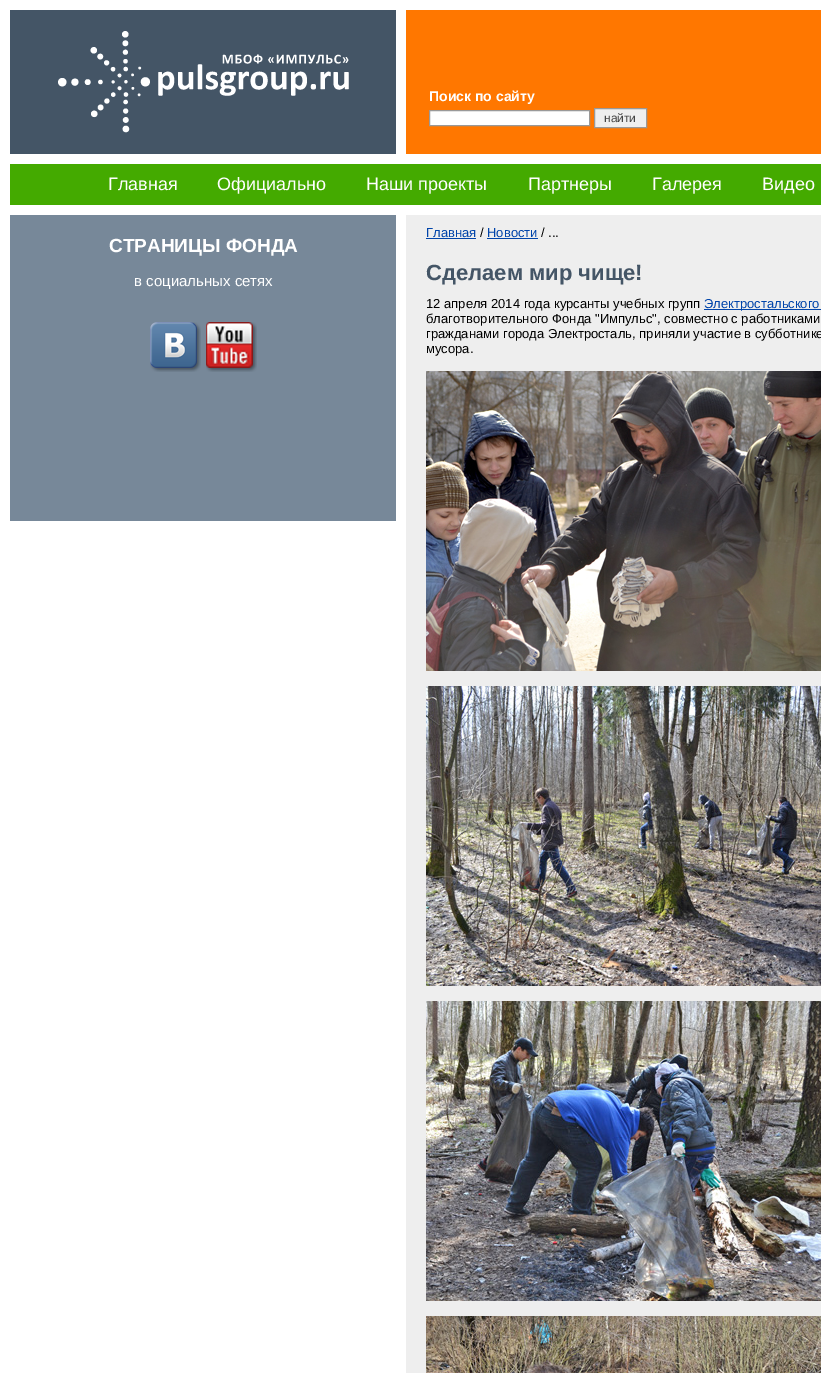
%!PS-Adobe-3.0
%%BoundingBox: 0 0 821 1373
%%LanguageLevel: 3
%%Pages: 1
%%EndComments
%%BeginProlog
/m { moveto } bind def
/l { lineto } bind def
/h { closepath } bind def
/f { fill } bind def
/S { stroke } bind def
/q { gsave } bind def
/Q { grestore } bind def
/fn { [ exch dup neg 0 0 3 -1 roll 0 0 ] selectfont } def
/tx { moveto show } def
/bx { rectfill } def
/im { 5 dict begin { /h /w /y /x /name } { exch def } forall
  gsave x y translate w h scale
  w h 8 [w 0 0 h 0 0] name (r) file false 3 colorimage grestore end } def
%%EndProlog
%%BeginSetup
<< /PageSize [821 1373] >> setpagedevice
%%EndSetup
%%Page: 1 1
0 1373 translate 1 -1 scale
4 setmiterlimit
1 setgray
0 0 821 1373 bx
0.267 0.333 0.4 setrgbcolor
10 10 386 144 bx
(image0.raw) 58 31 291 102 im
1 0.467 0 setrgbcolor
406 10 415 144 bx
/LiberationSans-Bold 14 fn
1 setgray
(Поиск по сайту) 429 101 tx
429.5 110.5 m 589.5 110.5 l 589.5 125.5 l 429.5 125.5 l h q f Q
0.6 setgray
S
0.937 setgray
594.5 108.5 m 646.5 108.5 l 646.5 127.5 l 594.5 127.5 l h q f Q
0.6 setgray
S
/LiberationSans-Regular 12 fn
0.267 setgray
(найти) 604 122 tx
0.267 0.667 0 setrgbcolor
10 164 811 41 bx
/LiberationSans-Regular 18 fn
1 setgray
(Главная) 108 190 tx
(Официально) 217 190 tx
(Наши проекты) 366 190 tx
(Партнеры) 528 190 tx
(Галерея) 652 190 tx
(Видео) 762 190 tx
0.467 0.533 0.6 setrgbcolor
10 215 386 306 bx
/LiberationSans-Bold 19 fn
1 setgray
(СТРАНИЦЫ ФОНДА) 109 252 tx
/LiberationSans-Regular 15 fn
(в социальных сетях) 134 286 tx
(image1.raw) 150 322 51 50 im
(image2.raw) 206 322 51 50 im
0.933 setgray
406 215 415 1158 bx
/LiberationSans-Regular 13 fn
0 0.267 0.667 setrgbcolor
(Главная) 426 237 tx
426 238 50 1 bx
0 setgray
(/) 480 237 tx
0 0.267 0.667 setrgbcolor
(Новости) 487 237 tx
487 238 51 1 bx
0 setgray
(/ ...) 541 237 tx
/LiberationSans-Bold 22 fn
0.267 0.333 0.4 setrgbcolor
(Сделаем мир чище!) 426 280 tx
/LiberationSans-Regular 13 fn
0 setgray
(12 апреля 2014 года курсанты учебных групп) 426 308 tx
0 0.267 0.667 setrgbcolor
704 309 117 1 bx
(Электростальского) 704 308 tx
0 setgray
(благотворительного Фонда "Импульс", совместно с работниками) 426 323 tx
(гражданами города Электросталь, приняли участие в субботнике) 426 338 tx
(мусора.) 426 353 tx
(image3.raw) 426 371 395 300 im
(image4.raw) 426 686 395 300 im
(image5.raw) 426 1001 395 300 im
(image6.raw) 426 1316 395 57 im
showpage
%%EOF
